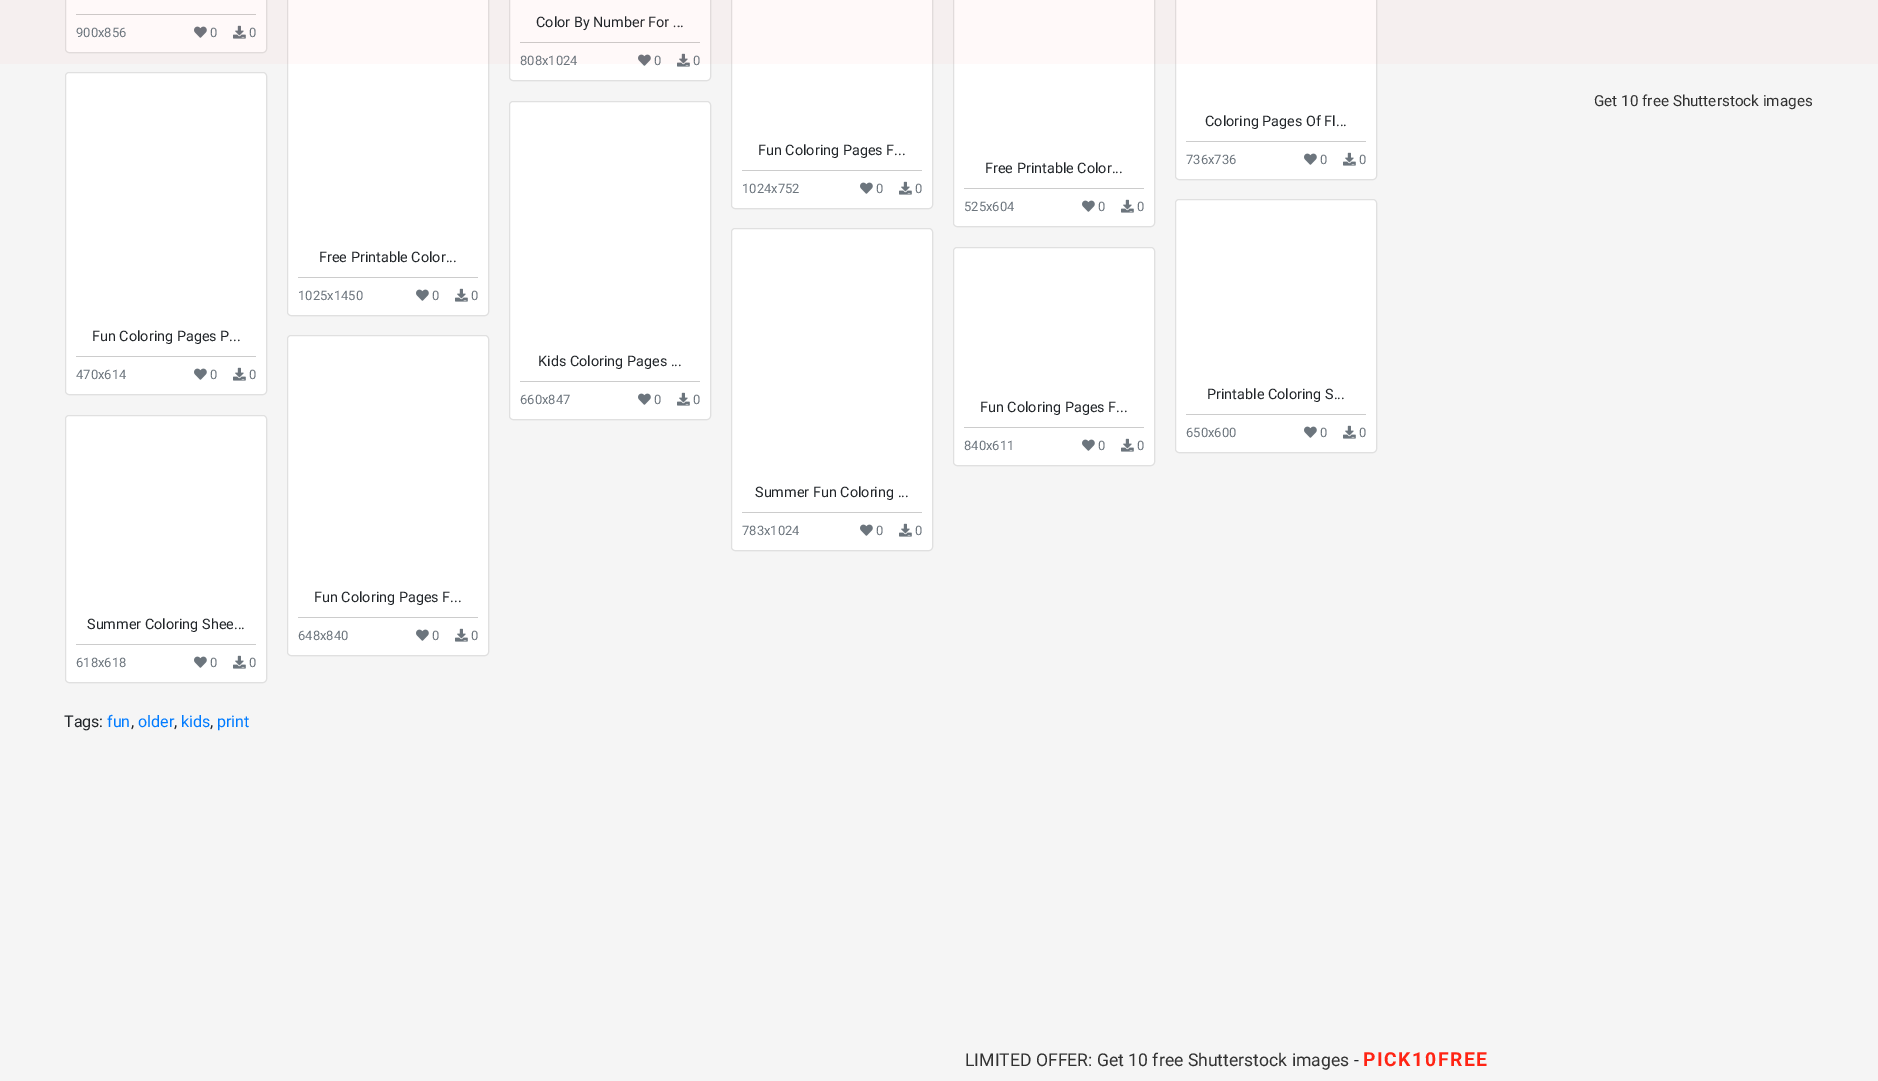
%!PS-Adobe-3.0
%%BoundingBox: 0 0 1878 1081
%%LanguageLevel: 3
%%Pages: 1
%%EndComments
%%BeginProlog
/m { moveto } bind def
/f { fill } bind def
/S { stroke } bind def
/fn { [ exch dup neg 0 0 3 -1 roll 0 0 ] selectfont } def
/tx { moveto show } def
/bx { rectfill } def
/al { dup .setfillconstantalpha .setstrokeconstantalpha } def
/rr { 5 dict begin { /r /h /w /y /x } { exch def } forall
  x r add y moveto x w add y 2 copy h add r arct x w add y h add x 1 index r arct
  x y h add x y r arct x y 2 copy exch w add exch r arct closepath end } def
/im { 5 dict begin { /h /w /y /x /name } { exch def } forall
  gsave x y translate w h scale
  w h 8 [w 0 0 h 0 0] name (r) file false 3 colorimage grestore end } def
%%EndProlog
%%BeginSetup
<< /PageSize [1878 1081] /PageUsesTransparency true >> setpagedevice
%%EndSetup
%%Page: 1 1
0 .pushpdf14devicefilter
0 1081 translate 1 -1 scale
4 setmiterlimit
0.961 setgray
0 0 1878 1081 bx
1 setgray
65 -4 202 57 4 rr f
0.12 al
0 setgray
65.5 -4.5 201 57 3.5 rr S
1 al
0.8 setgray
76 14 180 1 bx
(image1.raw) 194 26 13 12 im
(image2.raw) 233 25 13 14 im
1 setgray
509 -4 202 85 4 rr f
0.12 al
0 setgray
509.5 -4.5 201 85 3.5 rr S
1 al
0.8 setgray
520 42 180 1 bx
(image1.raw) 638 54 13 12 im
(image2.raw) 677 53 13 14 im
1 setgray
731 -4 202 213 4 rr f
0.12 al
0 setgray
731.5 -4.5 201 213 3.5 rr S
1 al
1 setgray
953 -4 202 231 4 rr f
0.12 al
0 setgray
953.5 -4.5 201 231 3.5 rr S
1 al
1 setgray
1175 -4 202 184 4 rr f
0.12 al
0 setgray
1175.5 -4.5 201 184 3.5 rr S
1 al
1 setgray
287 -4 202 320 4 rr f
0.12 al
0 setgray
287.5 -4.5 201 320 3.5 rr S
0.03 al
0.961 0.263 0.212 setrgbcolor
0 0 1878 64 bx
/Roboto-Regular 14.4 fn
1 al
0.129 0.145 0.161 setrgbcolor
(Color By Number For ...) 536 27 tx
(image0.raw) 634 21 45 6 im
/Roboto-Regular 13 fn
0.424 0.459 0.49 setrgbcolor
(900x856) 76 37 tx
(0) 210 37 tx
(0) 249 37 tx
(808x1024) 520 65 tx
(0) 654 65 tx
(0) 693 65 tx
0.8 setgray
742 170 180 1 bx
/Roboto-Regular 14.4 fn
0.129 0.145 0.161 setrgbcolor
(Fun Coloring Pages F...) 758 155 tx
/Roboto-Regular 13 fn
0.424 0.459 0.49 setrgbcolor
(1024x752) 742 193 tx
(image1.raw) 860 182 13 12 im
(0) 876 193 tx
(image2.raw) 899 181 13 14 im
(0) 915 193 tx
0.8 setgray
964 188 180 1 bx
/Roboto-Regular 14.4 fn
0.129 0.145 0.161 setrgbcolor
(Free Printable Color...) 985 173 tx
/Roboto-Regular 13 fn
0.424 0.459 0.49 setrgbcolor
(525x604) 964 211 tx
(image1.raw) 1082 200 13 12 im
(0) 1098 211 tx
(image2.raw) 1121 199 13 14 im
(0) 1137 211 tx
0.8 setgray
1186 141 180 1 bx
/Roboto-Regular 14.4 fn
0.129 0.145 0.161 setrgbcolor
(Coloring Pages Of Fl...) 1205 126 tx
/Roboto-Regular 13 fn
0.424 0.459 0.49 setrgbcolor
(736x736) 1186 164 tx
(image1.raw) 1304 153 13 12 im
(0) 1320 164 tx
(image2.raw) 1343 152 13 14 im
(0) 1359 164 tx
0.8 setgray
298 277 180 1 bx
/Roboto-Regular 14.4 fn
0.129 0.145 0.161 setrgbcolor
(Free Printable Color...) 319 262 tx
/Roboto-Regular 13 fn
0.424 0.459 0.49 setrgbcolor
(1025x1450) 298 300 tx
(image1.raw) 416 289 13 12 im
(0) 432 300 tx
(image2.raw) 455 288 13 14 im
(0) 471 300 tx
1 setgray
65 72 202 323 4 rr f
0.12 al
0 setgray
65.5 72.5 201 322 3.5 rr S
1 al
0.8 setgray
76 356 180 1 bx
/Roboto-Regular 14.4 fn
0.129 0.145 0.161 setrgbcolor
(Fun Coloring Pages P...) 92 341 tx
/Roboto-Regular 13 fn
0.424 0.459 0.49 setrgbcolor
(470x614) 76 379 tx
(image1.raw) 194 368 13 12 im
(0) 210 379 tx
(image2.raw) 233 367 13 14 im
(0) 249 379 tx
1 setgray
509 101 202 319 4 rr f
0.12 al
0 setgray
509.5 101.5 201 318 3.5 rr S
1 al
0.8 setgray
520 381 180 1 bx
/Roboto-Regular 14.4 fn
0.129 0.145 0.161 setrgbcolor
(Kids Coloring Pages ...) 538 366 tx
/Roboto-Regular 13 fn
0.424 0.459 0.49 setrgbcolor
(660x847) 520 404 tx
(image1.raw) 638 393 13 12 im
(0) 654 404 tx
(image2.raw) 677 392 13 14 im
(0) 693 404 tx
1 setgray
953 247 202 219 4 rr f
0.12 al
0 setgray
953.5 247.5 201 218 3.5 rr S
1 al
0.8 setgray
964 427 180 1 bx
/Roboto-Regular 14.4 fn
0.129 0.145 0.161 setrgbcolor
(Fun Coloring Pages F...) 980 412 tx
/Roboto-Regular 13 fn
0.424 0.459 0.49 setrgbcolor
(840x611) 964 450 tx
(image1.raw) 1082 439 13 12 im
(0) 1098 450 tx
(image2.raw) 1121 438 13 14 im
(0) 1137 450 tx
1 setgray
1175 199 202 254 4 rr f
0.12 al
0 setgray
1175.5 199.5 201 253 3.5 rr S
1 al
0.8 setgray
1186 414 180 1 bx
/Roboto-Regular 14.4 fn
0.129 0.145 0.161 setrgbcolor
(Printable Coloring S...) 1207 399 tx
/Roboto-Regular 13 fn
0.424 0.459 0.49 setrgbcolor
(650x600) 1186 437 tx
(image1.raw) 1304 426 13 12 im
(0) 1320 437 tx
(image2.raw) 1343 425 13 14 im
(0) 1359 437 tx
1 setgray
731 228 202 323 4 rr f
0.12 al
0 setgray
731.5 228.5 201 322 3.5 rr S
1 al
0.8 setgray
742 512 180 1 bx
/Roboto-Regular 14.4 fn
0.129 0.145 0.161 setrgbcolor
(Summer Fun Coloring ...) 755 497 tx
/Roboto-Regular 13 fn
0.424 0.459 0.49 setrgbcolor
(783x1024) 742 535 tx
(image1.raw) 860 524 13 12 im
(0) 876 535 tx
(image2.raw) 899 523 13 14 im
(0) 915 535 tx
1 setgray
65 415 202 268 4 rr f
0.12 al
0 setgray
65.5 415.5 201 267 3.5 rr S
1 al
0.8 setgray
76 644 180 1 bx
/Roboto-Regular 14.4 fn
0.129 0.145 0.161 setrgbcolor
(Summer Coloring Shee...) 87 629 tx
/Roboto-Regular 13 fn
0.424 0.459 0.49 setrgbcolor
(618x618) 76 667 tx
(image1.raw) 194 656 13 12 im
(0) 210 667 tx
(image2.raw) 233 655 13 14 im
(0) 249 667 tx
1 setgray
287 335 202 321 4 rr f
0.12 al
0 setgray
287.5 335.5 201 320 3.5 rr S
1 al
0.8 setgray
298 617 180 1 bx
/Roboto-Regular 14.4 fn
0.129 0.145 0.161 setrgbcolor
(Fun Coloring Pages F...) 314 602 tx
/Roboto-Regular 13 fn
0.424 0.459 0.49 setrgbcolor
(648x840) 298 640 tx
(image1.raw) 416 629 13 12 im
(0) 432 640 tx
(image2.raw) 455 628 13 14 im
(0) 471 640 tx
/Roboto-Regular 16 fn
0.129 0.145 0.161 setrgbcolor
(Tags:) 64 727 tx
0 0.482 1 setrgbcolor
(fun) 107 727 tx
0.129 0.145 0.161 setrgbcolor
(,) 131 727 tx
0 0.482 1 setrgbcolor
(older) 138 727 tx
0.129 0.145 0.161 setrgbcolor
(,) 174 727 tx
0 0.482 1 setrgbcolor
(kids) 181 727 tx
0.129 0.145 0.161 setrgbcolor
(,) 210 727 tx
0 0.482 1 setrgbcolor
(print) 217 727 tx
/Roboto-Regular 17.6 fn
0.196 setgray
(LIMITED OFFER: Get 10 free Shutterstock images) 965 1066 tx
0.129 0.145 0.161 setrgbcolor
(-) 1354 1066 tx
/Roboto-Bold 19.25 fn
1 0.141 0.078 setrgbcolor
1363 1066 m 1.6 0 (PICK10FREE) ashow
/Roboto-Regular 15.25 fn
0.196 setgray
(Get 10 free Shutterstock images) 1594 106 tx
.poppdf14devicefilter showpage
%%EOF
